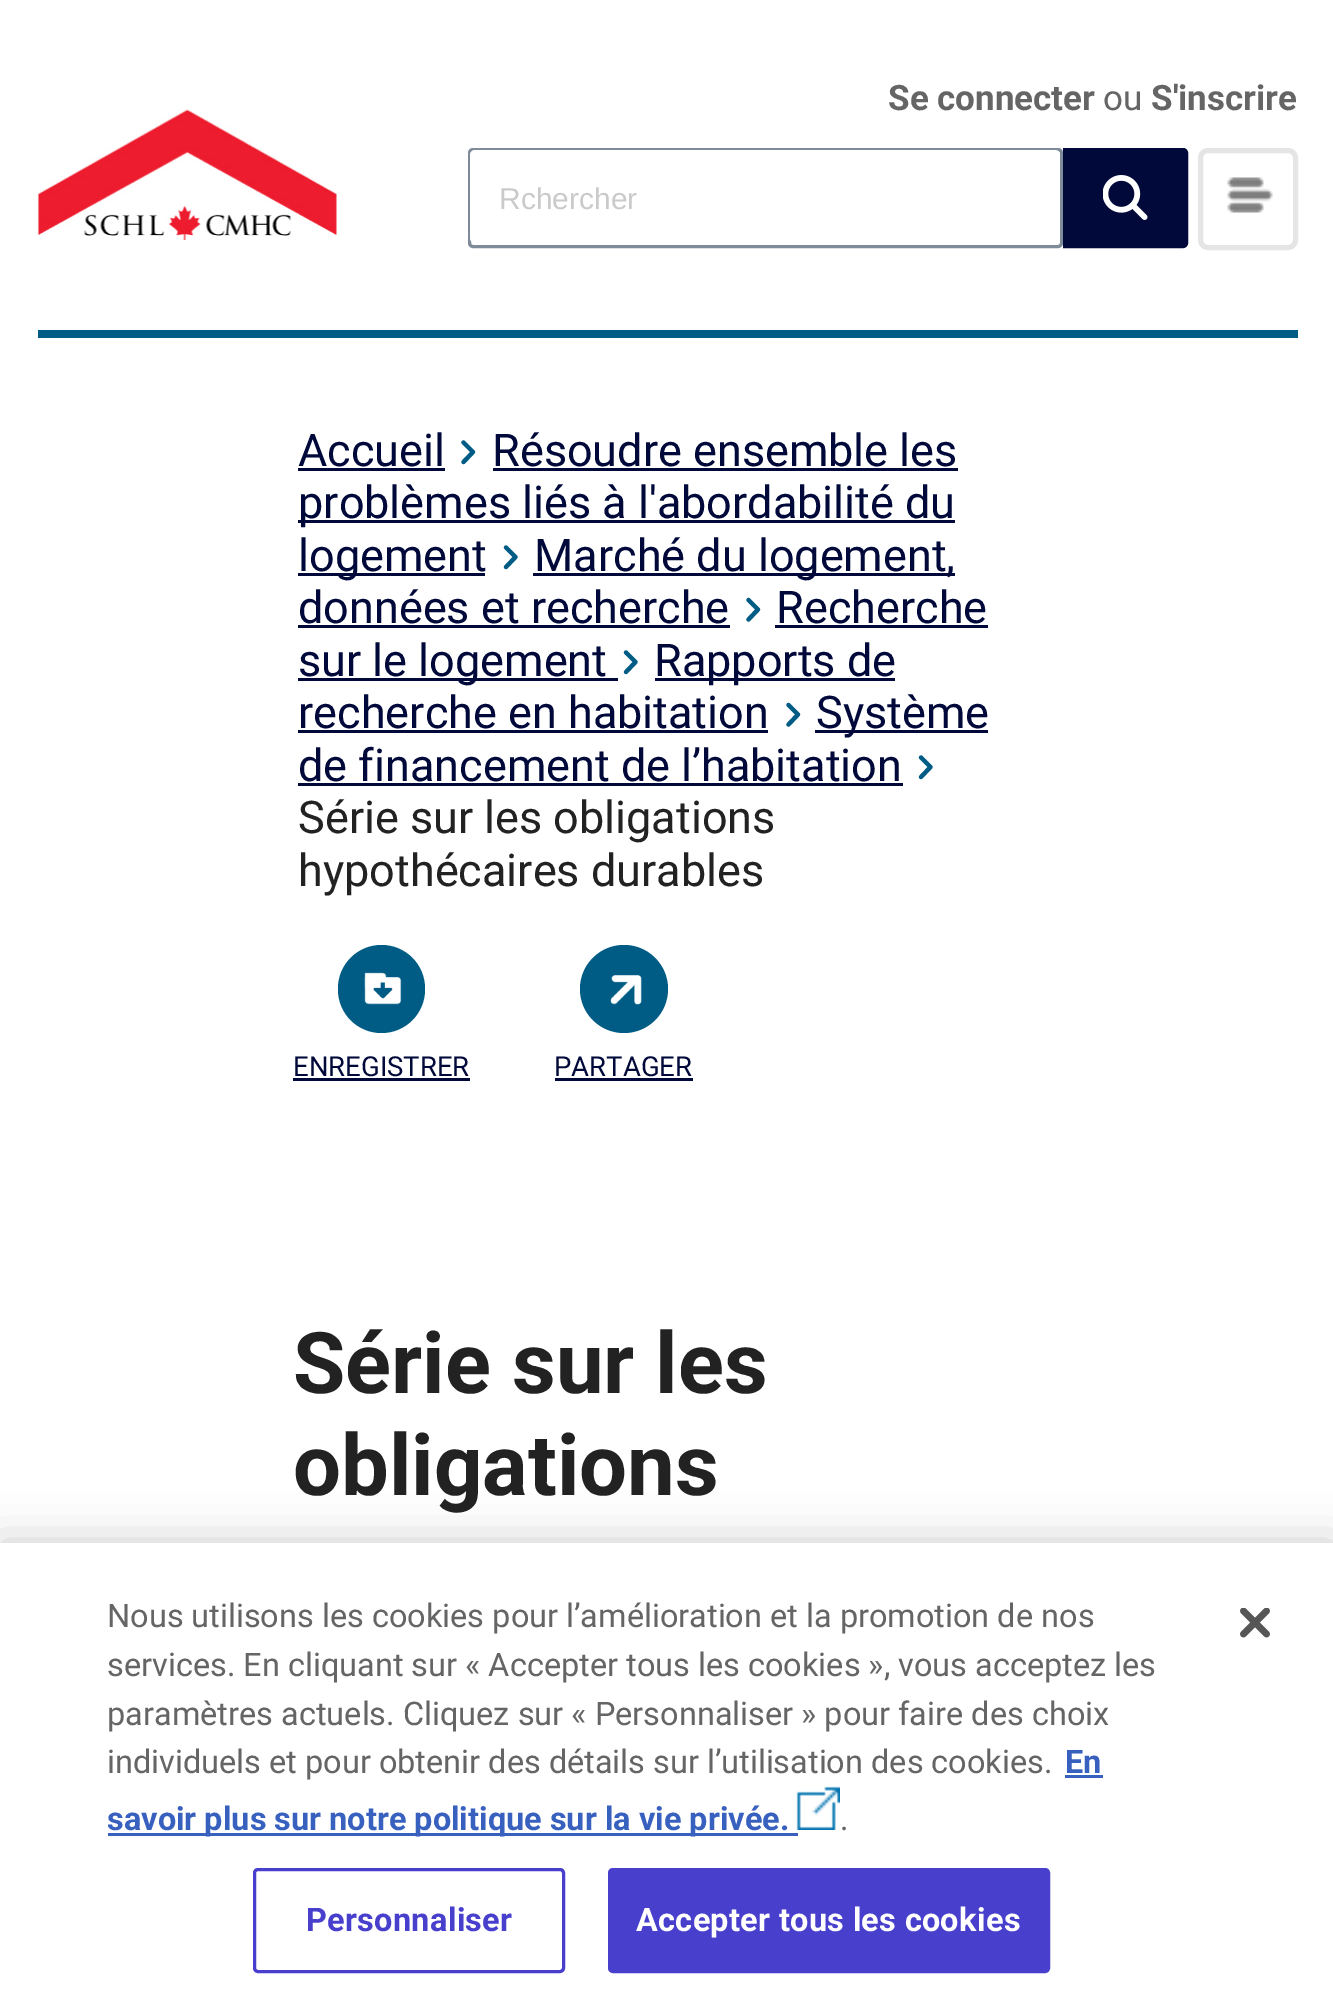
%!PS-Adobe-3.0
%%BoundingBox: 0 0 1333 2012
%%LanguageLevel: 3
%%Pages: 1
%%EndComments
%%BeginProlog
/m { moveto } bind def
/l { lineto } bind def
/c { curveto } bind def
/h { closepath } bind def
/f { fill } bind def
/S { stroke } bind def
/q { gsave } bind def
/Q { grestore } bind def
/w { setlinewidth } bind def
/fn { [ exch dup neg 0 0 3 -1 roll 0 0 ] selectfont } def
/tx { moveto show } def
/bx { rectfill } def
/al { dup .setfillconstantalpha .setstrokeconstantalpha } def
/ci { newpath 0 360 arc closepath } def
/rr { 5 dict begin { /r /h /w /y /x } { exch def } forall
  x r add y moveto x w add y 2 copy h add r arct x w add y h add x 1 index r arct
  x y h add x y r arct x y 2 copy exch w add exch r arct closepath end } def
/sh { 12 dict begin { /a /b /q /h /w /y /x } { exch def } forall gsave /was 0 def
  9 -2 -9 { dup b mul 4 div /e exch def 1 sub .425 mul 2.718 exch exp 1 add a .99 .min exch div /now exch def
    1 1 now sub 1 was sub div sub al /was now def
    w h .min e 2 mul add 0 gt { x e sub y e sub w e 2 mul add h e 2 mul add
      q e add b .6 mul add w h .min 2 div e add .min 0 .max rr fill } if } for grestore end } def
/im { 5 dict begin { /h /w /y /x /name } { exch def } forall
  gsave x y translate w h scale
  w h 8 [w 0 0 h 0 0] name (r) file false 3 colorimage grestore end } def
%%EndProlog
%%BeginSetup
<< /PageSize [1333 2012] /PageUsesTransparency true >> setpagedevice
%%EndSetup
%%Page: 1 1
0 .pushpdf14devicefilter
0 2012 translate 1 -1 scale
4 setmiterlimit
1 setgray
0 0 1333 2012 bx
0 0.361 0.518 setrgbcolor
38 330 1260 8 bx
(image0.raw) 37 109 300 131 im
/Roboto-Bold 35 fn
0.396 setgray
(Se connecter) 888 110 tx
/Roboto-Regular 35 fn
(ou) 1103 110 tx
/Roboto-Bold 35 fn
(S'inscrire) 1151 110 tx
0.494 0.549 0.604 setrgbcolor
3 w
469.5 149.5 592 97 3.5 rr S
1 setgray
470 150 590 93 5 rr f
/LiberationSans-Regular 30 fn
0.792 setgray
(Rchercher) 499 209 tx
0 0.035 0.227 setrgbcolor
1064.5 149.5 m 1183 149.5 l 1185 149.5 1186.5 151 1186.5 153 c 1186.5 243 l 1186.5 245 1185 246.5 1183 246.5 c 1064.5 246.5 l h q f Q
S
(image1.raw) 1103 175 45 45 im
0.898 setgray
5 w
1200.5 150.5 95 97 7.5 rr S
(image2.raw) 1227 177 46 36 im
/Roboto-Regular 45 fn
0 0.035 0.227 setrgbcolor
(Accueil) 298 466 tx
298 468 147 3 bx
0 0.361 0.518 setrgbcolor
4.2 w
1 setlinecap
1 setlinejoin
463.5 462 m 473 452 l 463.5 442.5 l S
0 0.035 0.227 setrgbcolor
(Résoudre ensemble les) 492 466 tx
493 468 465 3 bx
298 520 657 3 bx
(problèmes liés à l'abordabilité du) 298 518 tx
298 573 187 3 bx
(logement) 298 571 tx
0 0.361 0.518 setrgbcolor
506 567 m 515.5 557 l 506 547.5 l S
0 0.035 0.227 setrgbcolor
533 573 422 3 bx
(Marché du logement,) 534 571 tx
(données et recherche) 298 623 tx
298 625 432 3 bx
0 0.361 0.518 setrgbcolor
748.5 619.5 m 758 609.5 l 748.5 600 l S
0 0.035 0.227 setrgbcolor
(Recherche) 776 623 tx
775 625 213 3 bx
298 678 320 3 bx
(sur le logement) 298 676 tx
0 0.361 0.518 setrgbcolor
626 672 m 635.5 662 l 626 652.5 l S
0 0.035 0.227 setrgbcolor
655 678 240 3 bx
(Rapports de) 654 676 tx
(recherche en habitation) 298 728 tx
298 730 470 3 bx
0 0.361 0.518 setrgbcolor
788.5 724.5 m 798 714.5 l 788.5 705 l S
0 0.035 0.227 setrgbcolor
815 730 173 3 bx
(Système) 816 728 tx
(de financement de l’habitation) 298 781 tx
298 783 605 3 bx
0 0.361 0.518 setrgbcolor
921 777 m 930.5 767 l 921 757.5 l S
0.133 setgray
(Série sur les obligations) 298 833 tx
(hypothécaires durables) 298 886 tx
0 0.361 0.518 setrgbcolor
338 945 87 88 43.5 rr f
(image3.raw) 364 972 38 33 im
/Roboto-Regular 27.5 fn
0 0.035 0.227 setrgbcolor
(ENREGISTRER) 293 1076 tx
293 1078 177 3 bx
0 0.361 0.518 setrgbcolor
624 989 44 ci f
(image4.raw) 610 975 32 30 im
0 0.035 0.227 setrgbcolor
(PARTAGER) 554 1076 tx
555 1078 138 3 bx
/Roboto-Bold 85 fn
0.133 setgray
(Série sur les) 293 1393 tx
(obligations) 293 1495 tx
0 setgray
0 1543 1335 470 0 22.5 0.2 sh
1 setgray
0 1543 1333 469 bx
/Roboto-Regular 32.5 fn
0.396 setgray
(Nous utilisons les cookies pour l’amélioration et la promotion de nos) 107 1627 tx
(services. En cliquant sur « Accepter tous les cookies », vous acceptez les) 107 1676 tx
(paramètres actuels. Cliquez sur « Personnaliser » pour faire des choix) 107 1725 tx
(individuels et pour obtenir des détails sur l’utilisation des cookies.) 107 1773 tx
/Roboto-Bold 32.5 fn
0.22 0.376 0.745 setrgbcolor
(En) 1065 1773 tx
1065 1775 38 3 bx
108 1833 690 3 bx
(savoir plus sur notre politique sur la vie privée.) 107 1830 tx
(image5.raw) 796 1786 44 44 im
/Roboto-Regular 32.5 fn
0.396 setgray
(.) 840 1830 tx
0.282 0.247 0.804 setrgbcolor
3 w
0 setlinecap
0 setlinejoin
254.5 1869.5 309 102 3.5 rr S
/Roboto-Bold 32.5 fn
306 1931 m 0.3 0 (Personnaliser) ashow
609.5 1869.5 439 102 3.5 rr q f Q
S
1 setgray
636 1931 m 0.3 0 (Accepter tous les cookies) ashow
(image6.raw) 1240 1608 30 30 im
.poppdf14devicefilter showpage
%%EOF
